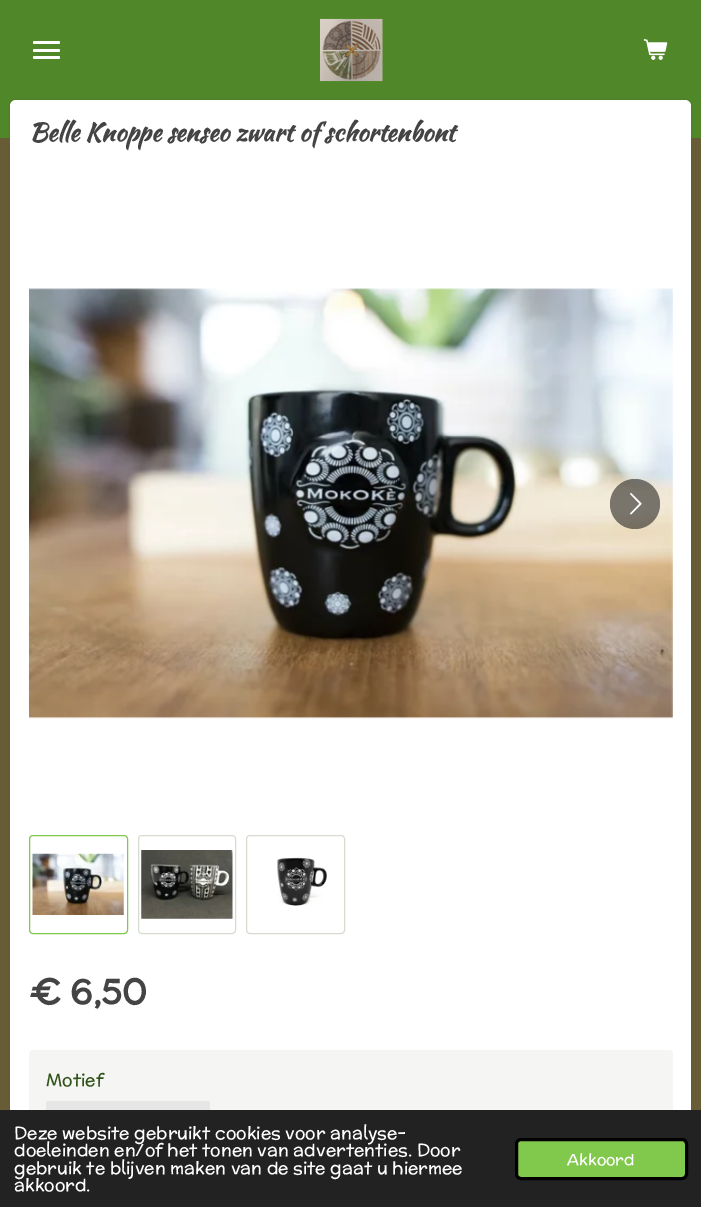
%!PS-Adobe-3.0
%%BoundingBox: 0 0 701 1207
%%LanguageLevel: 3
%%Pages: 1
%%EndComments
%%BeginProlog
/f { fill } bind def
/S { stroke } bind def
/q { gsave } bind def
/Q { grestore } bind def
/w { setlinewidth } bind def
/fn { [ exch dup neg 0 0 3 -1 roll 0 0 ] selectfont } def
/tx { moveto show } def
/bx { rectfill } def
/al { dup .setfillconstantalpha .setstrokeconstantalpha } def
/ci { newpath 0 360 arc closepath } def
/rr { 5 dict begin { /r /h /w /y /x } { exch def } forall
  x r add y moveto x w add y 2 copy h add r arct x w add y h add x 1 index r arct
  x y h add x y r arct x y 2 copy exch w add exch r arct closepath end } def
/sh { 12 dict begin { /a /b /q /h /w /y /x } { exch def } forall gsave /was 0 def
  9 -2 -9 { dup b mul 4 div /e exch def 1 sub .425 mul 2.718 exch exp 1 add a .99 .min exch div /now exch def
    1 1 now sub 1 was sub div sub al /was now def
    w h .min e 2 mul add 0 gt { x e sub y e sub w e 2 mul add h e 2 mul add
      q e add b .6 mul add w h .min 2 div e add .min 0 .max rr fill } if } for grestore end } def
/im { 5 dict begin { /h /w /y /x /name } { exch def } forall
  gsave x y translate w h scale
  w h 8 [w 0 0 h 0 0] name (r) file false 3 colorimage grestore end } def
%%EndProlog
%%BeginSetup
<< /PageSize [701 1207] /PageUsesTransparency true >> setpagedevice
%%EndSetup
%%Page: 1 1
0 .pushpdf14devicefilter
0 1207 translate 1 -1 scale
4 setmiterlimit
0.408 0.361 0.212 setrgbcolor
0 0 701 1207 bx
0.314 0.529 0.161 setrgbcolor
0 0 701 138 bx
1 setgray
33 49 27 3 1.5 rr f
33 41 27 3 1.5 rr f
33 56 27 3 1.5 rr f
(image0.raw) 320 18 63 64 im
(image1.raw) 643 39 25 21 im
0 setgray
10 100 681 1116 6 1 0.1 sh
1 setgray
10 100 681 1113 6 rr f
/KaushanScript-Bold 25 fn
0.267 setgray
(Belle Knoppe senseo zwart of schortenbont) 29 141 tx
(image2.raw) 29 288 644 431 im
0.5 al
0 setgray
635 504 25 ci f
1 al
(image3.raw) 630 493 12 22 im
0.506 0.788 0.298 setrgbcolor
29.5 835.5 98 98 3.5 rr S
(image4.raw) 32 853 92 62 im
0.839 0.863 0.82 setrgbcolor
138.5 835.5 97 98 3.5 rr S
(image5.raw) 141 850 92 69 im
246.5 835.5 98 98 3.5 rr S
(image6.raw) 277 857 50 49 im
/McLaren-Bold 35 fn
0.267 setgray
(€ 6,50) 29 1004 tx
0.961 0.965 0.957 setrgbcolor
29 1050 644 124 4 rr f
/McLaren-Regular 17.5 fn
0.192 0.322 0.098 setrgbcolor
(Motief) 46 1086 tx
0.902 setgray
46 1101 164 55 2.5 rr f
0.133 setgray
0 1110 701 97 bx
1 setgray
(Deze website gebruikt cookies voor analyse-) 14 1139 tx
(doeleinden en/of het tonen van advertenties. Door) 14 1156 tx
(gebruik te blijven maken van de site gaat u hiermee) 14 1174 tx
(akkoord.) 14 1191 tx
0.506 0.788 0.298 setrgbcolor
516.5 1139.5 170 39 4.5 rr q f Q
0 setgray
3 w
S
/McLaren-Regular 15.75 fn
1 setgray
(Akkoord) 567 1165 tx
.poppdf14devicefilter showpage
%%EOF
